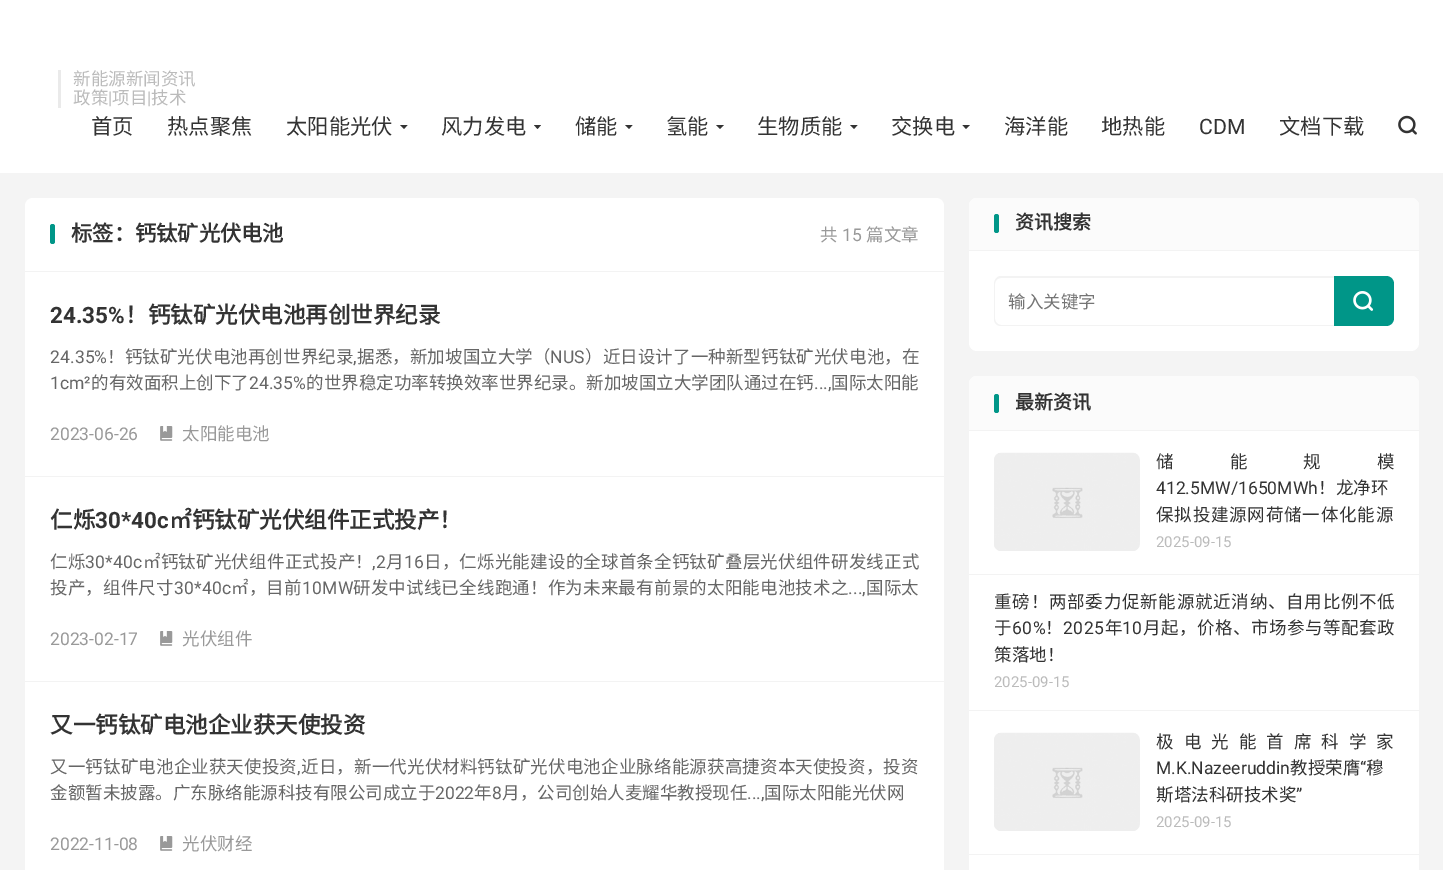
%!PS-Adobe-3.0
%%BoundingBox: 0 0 1443 870
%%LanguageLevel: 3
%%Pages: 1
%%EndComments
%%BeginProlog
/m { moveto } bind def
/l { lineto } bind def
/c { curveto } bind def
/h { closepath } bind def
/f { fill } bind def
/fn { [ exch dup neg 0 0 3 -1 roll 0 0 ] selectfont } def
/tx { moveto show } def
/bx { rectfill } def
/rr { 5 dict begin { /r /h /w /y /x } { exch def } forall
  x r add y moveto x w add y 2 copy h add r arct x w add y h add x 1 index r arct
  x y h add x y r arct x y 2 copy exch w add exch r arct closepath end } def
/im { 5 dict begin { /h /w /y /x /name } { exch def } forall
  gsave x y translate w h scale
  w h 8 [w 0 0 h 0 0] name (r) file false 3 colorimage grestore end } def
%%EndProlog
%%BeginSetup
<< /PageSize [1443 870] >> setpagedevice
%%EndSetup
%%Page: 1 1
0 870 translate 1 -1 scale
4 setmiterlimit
0.957 setgray
0 0 1443 870 bx
1 setgray
0 0 1443 173 bx
0.918 setgray
58 70 3 38 bx
/NotoSansCJKSC-Regular 17.5 fn
0.733 setgray
(新能源新闻资讯) 73 85 tx
(政策) 73 104 tx
/Roboto-Regular 17.5 fn
(|) 108 104 tx
/NotoSansCJKSC-Regular 17.5 fn
(项目) 112 104 tx
/Roboto-Regular 17.5 fn
(|) 147 104 tx
/NotoSansCJKSC-Regular 17.5 fn
(技术) 151 104 tx
/NotoSansCJKSC-Regular 21.25 fn
0.2 setgray
(首页) 91 134 tx
(热点聚焦) 167 134 tx
(太阳能光伏) 286 134 tx
400 125 m 407.5 125 l 404 129 l h f
(风力发电) 441 134 tx
534 125 m 541 125 l 537.5 129 l h f
(储能) 575 134 tx
625 125 m 632.5 125 l 629 129 l h f
(氢能) 666 134 tx
716 125 m 724 125 l 720 129 l h f
(生物质能) 757 134 tx
850 125 m 857.5 125 l 854 129 l h f
(交换电) 891 134 tx
962.5 125 m 970 125 l 966 129 l h f
(海洋能) 1004 134 tx
(地热能) 1101 134 tx
/Roboto-Regular 21.25 fn
(CDM) 1199 134 tx
/NotoSansCJKSC-Regular 21.25 fn
(文档下载) 1279 134 tx
(image0.raw) 1398 115 19 20 im
1 setgray
33 198 m 936 198 l 940.5 198 944 201.5 944 206 c 944 273 l 25 273 l 25 206 l 25 201.5 28.5 198 33 198 c h f
0.953 setgray
25 271 919 1 bx
0 0.588 0.533 setrgbcolor
50 224 5 20 2.5 rr f
/NotoSansCJKSC-Bold 21.25 fn
0.2 setgray
(标签：钙钛矿光伏电池) 71 241 tx
/NotoSansCJKSC-Regular 17.5 fn
0.6 setgray
(共) 820 241 tx
/Roboto-Regular 17.5 fn
(15) 842 241 tx
/NotoSansCJKSC-Regular 17.5 fn
(篇文章) 866 241 tx
1 setgray
25 273 919 597 bx
0.953 setgray
25 476 919 1 bx
/Roboto-Bold 22.5 fn
0.2 setgray
(24.35%) 50 323 tx
/NotoSansCJKSC-Bold 22.5 fn
(！钙钛矿光伏电池再创世界纪录) 125 323 tx
/Roboto-Regular 17.5 fn
0.4 setgray
50 363 m 0.1 0 (24.35%) ashow
/NotoSansCJKSC-Regular 17.5 fn
107 363 m 0.1 0 (！钙钛矿光伏电池再创世界纪录) ashow
/Roboto-Regular 17.5 fn
353 363 m 0.1 0 (,) ashow
/NotoSansCJKSC-Regular 17.5 fn
357 363 m 0.1 0 (据悉，新加坡国立大学（) ashow
/Roboto-Regular 17.5 fn
550 363 m 0.1 0 (NUS) ashow
/NotoSansCJKSC-Regular 17.5 fn
585 363 m 0.1 0 (）近日设计了一种新型钙钛矿光伏电池，在) ashow
/Roboto-Regular 17.5 fn
(1cm²) 50 389 tx
/NotoSansCJKSC-Regular 17.5 fn
(的有效面积上创下了) 91 389 tx
/Roboto-Regular 17.5 fn
(24.35%) 249 389 tx
/NotoSansCJKSC-Regular 17.5 fn
(的世界稳定功率转换效率世界纪录。新加坡国立大学团队通过在钙) 306 389 tx
/Roboto-Regular 17.5 fn
(...,) 814 389 tx
/NotoSansCJKSC-Regular 17.5 fn
(国际太阳能) 831 389 tx
/Roboto-Regular 17.5 fn
0.6 setgray
(2023-06-26) 50 440 tx
(image1.raw) 160 426 13 15 im
/NotoSansCJKSC-Regular 17.5 fn
(太阳能电池) 182 440 tx
0.953 setgray
25 681 919 1 bx
/NotoSansCJKSC-Bold 22.5 fn
0.2 setgray
(仁烁) 50 528 tx
/Roboto-Bold 22.5 fn
(30*40c) 95 528 tx
/NotoSansCJKSC-Bold 22.5 fn
(㎡钙钛矿光伏组件正式投产！) 169 528 tx
/NotoSansCJKSC-Regular 17.5 fn
0.4 setgray
50 568 m 0.2 0 (仁烁) ashow
/Roboto-Regular 17.5 fn
85 568 m 0.2 0 (30*40c) ashow
/NotoSansCJKSC-Regular 17.5 fn
143 568 m 0.2 0 (㎡钙钛矿光伏组件正式投产！) ashow
/Roboto-Regular 17.5 fn
372 568 m 0.2 0 (,2) ashow
/NotoSansCJKSC-Regular 17.5 fn
386 568 m 0.2 0 (月) ashow
/Roboto-Regular 17.5 fn
404 568 m 0.2 0 (16) ashow
/NotoSansCJKSC-Regular 17.5 fn
424 568 m 0.2 0 (日，仁烁光能建设的全球首条全钙钛矿叠层光伏组件研发线正式) ashow
50 594 m 0.2 0 (投产，组件尺寸) ashow
/Roboto-Regular 17.5 fn
174 594 m 0.2 0 (30*40c) ashow
/NotoSansCJKSC-Regular 17.5 fn
231 594 m 0.2 0 (㎡，目前) ashow
/Roboto-Regular 17.5 fn
302 594 m 0.2 0 (10MW) ashow
/NotoSansCJKSC-Regular 17.5 fn
353 594 m 0.2 0 (研发中试线已全线跑通！作为未来最有前景的太阳能电池技术之) ashow
/Roboto-Regular 17.5 fn
848 594 m 0.2 0 (...,) ashow
/NotoSansCJKSC-Regular 17.5 fn
866 594 m 0.2 0 (国际太) ashow
/Roboto-Regular 17.5 fn
0.6 setgray
(2023-02-17) 50 645 tx
(image1.raw) 160 631 13 15 im
/NotoSansCJKSC-Regular 17.5 fn
(光伏组件) 182 645 tx
/NotoSansCJKSC-Bold 22.5 fn
0.2 setgray
(又一钙钛矿电池企业获天使投资) 50 733 tx
/NotoSansCJKSC-Regular 17.5 fn
0.4 setgray
50 773 m 0.15 0 (又一钙钛矿电池企业获天使投资) ashow
/Roboto-Regular 17.5 fn
297 773 m 0.15 0 (,) ashow
/NotoSansCJKSC-Regular 17.5 fn
301 773 m 0.15 0 (近日，新一代光伏材料钙钛矿光伏电池企业脉络能源获高捷资本天使投资，投资) ashow
(金额暂未披露。广东脉络能源科技有限公司成立于) 50 799 tx
/Roboto-Regular 17.5 fn
(2022) 435 799 tx
/NotoSansCJKSC-Regular 17.5 fn
(年) 474 799 tx
/Roboto-Regular 17.5 fn
(8) 492 799 tx
/NotoSansCJKSC-Regular 17.5 fn
(月，公司创始人麦耀华教授现任) 502 799 tx
/Roboto-Regular 17.5 fn
(...,) 747 799 tx
/NotoSansCJKSC-Regular 17.5 fn
(国际太阳能光伏网) 764 799 tx
/Roboto-Regular 17.5 fn
0.6 setgray
(2022-11-08) 50 850 tx
(image1.raw) 160 836 13 15 im
/NotoSansCJKSC-Regular 17.5 fn
(光伏财经) 182 850 tx
1 setgray
969 198 450 153 8 rr f
0.984 setgray
977 198 m 1411 198 l 1415.5 198 1419 201.5 1419 206 c 1419 251 l 969 251 l 969 206 l 969 201.5 972.5 198 977 198 c h f
0.953 setgray
969 250 450 1 bx
0 0.588 0.533 setrgbcolor
994 214 5 19 2.5 rr f
/NotoSansCJKSC-Bold 19 fn
0.2 setgray
(资讯搜索) 1015 229 tx
0.953 setgray
1001 276 m 1334 276 l 1334 326 l 1001 326 l 997 326 994 323 994 319 c 994 284 l 994 280 997 276 1001 276 c h 1001 278 m 1334 278 l 1334 325 l 1001 325 l 998 325 995 322 995 319 c 995 284 l 995 280 998 278 1001 278 c h eofill
/NotoSansCJKSC-Regular 17.5 fn
0.459 setgray
(输入关键字) 1008 308 tx
0 0.588 0.533 setrgbcolor
1334 276 m 1386 276 l 1390.5 276 1394 279.5 1394 284 c 1394 318 l 1394 322.5 1390.5 326 1386 326 c 1334 326 l h f
(image2.raw) 1353 291 21 20 im
1 setgray
969 376 450 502 8 rr f
0.984 setgray
977 376 m 1411 376 l 1415.5 376 1419 379.5 1419 384 c 1419 431 l 969 431 l 969 384 l 969 379.5 972.5 376 977 376 c h f
0.953 setgray
969 430 450 1 bx
0 0.588 0.533 setrgbcolor
994 394 5 19 2.5 rr f
/NotoSansCJKSC-Bold 19 fn
0.2 setgray
(最新资讯) 1015 409 tx
0.953 setgray
969 574 450 1 bx
(image3.raw) 994 452 146 99 im
/NotoSansCJKSC-Regular 17.5 fn
0.2 setgray
1156 468 m 56 0 (储能规模) ashow
/Roboto-Regular 17.5 fn
(412.5MW/1650MWh) 1156 494 tx
/NotoSansCJKSC-Regular 17.5 fn
(！龙净环) 1318 494 tx
1156 521 m 0.8 0 (保拟投建源网荷储一体化能源) ashow
/Roboto-Regular 15 fn
0.733 setgray
(2025-09-15) 1156 547 tx
0.953 setgray
969 710 450 1 bx
/NotoSansCJKSC-Regular 17.5 fn
0.2 setgray
994 608 m 0.75 0 (重磅！两部委力促新能源就近消纳、自用比例不低) ashow
994 634 m 0.5 0 (于) ashow
/Roboto-Regular 17.5 fn
1012 634 m 0.5 0 (60%) ashow
/NotoSansCJKSC-Regular 17.5 fn
1045 634 m 0.5 0 (！) ashow
/Roboto-Regular 17.5 fn
1063 634 m 0.5 0 (2025) ashow
/NotoSansCJKSC-Regular 17.5 fn
1105 634 m 0.5 0 (年) ashow
/Roboto-Regular 17.5 fn
1122 634 m 0.5 0 (10) ashow
/NotoSansCJKSC-Regular 17.5 fn
1143 634 m 0.5 0 (月起，价格、市场参与等配套政) ashow
(策落地！) 994 661 tx
/Roboto-Regular 15 fn
0.733 setgray
(2025-09-15) 994 687 tx
0.953 setgray
969 854 450 1 bx
(image3.raw) 994 732 146 99 im
/NotoSansCJKSC-Regular 17.5 fn
0.2 setgray
1156 748 m 10 0 (极电光能首席科学家) ashow
/Roboto-Regular 17.5 fn
(M.K.Nazeeruddin) 1156 774 tx
/NotoSansCJKSC-Regular 17.5 fn
(教授荣膺) 1290 774 tx
/Roboto-Regular 17.5 fn
(“) 1360 774 tx
/NotoSansCJKSC-Regular 17.5 fn
(穆) 1366 774 tx
(斯塔法科研技术奖) 1156 801 tx
/Roboto-Regular 17.5 fn
(”) 1296 801 tx
/Roboto-Regular 15 fn
0.733 setgray
(2025-09-15) 1156 827 tx
showpage
%%EOF
